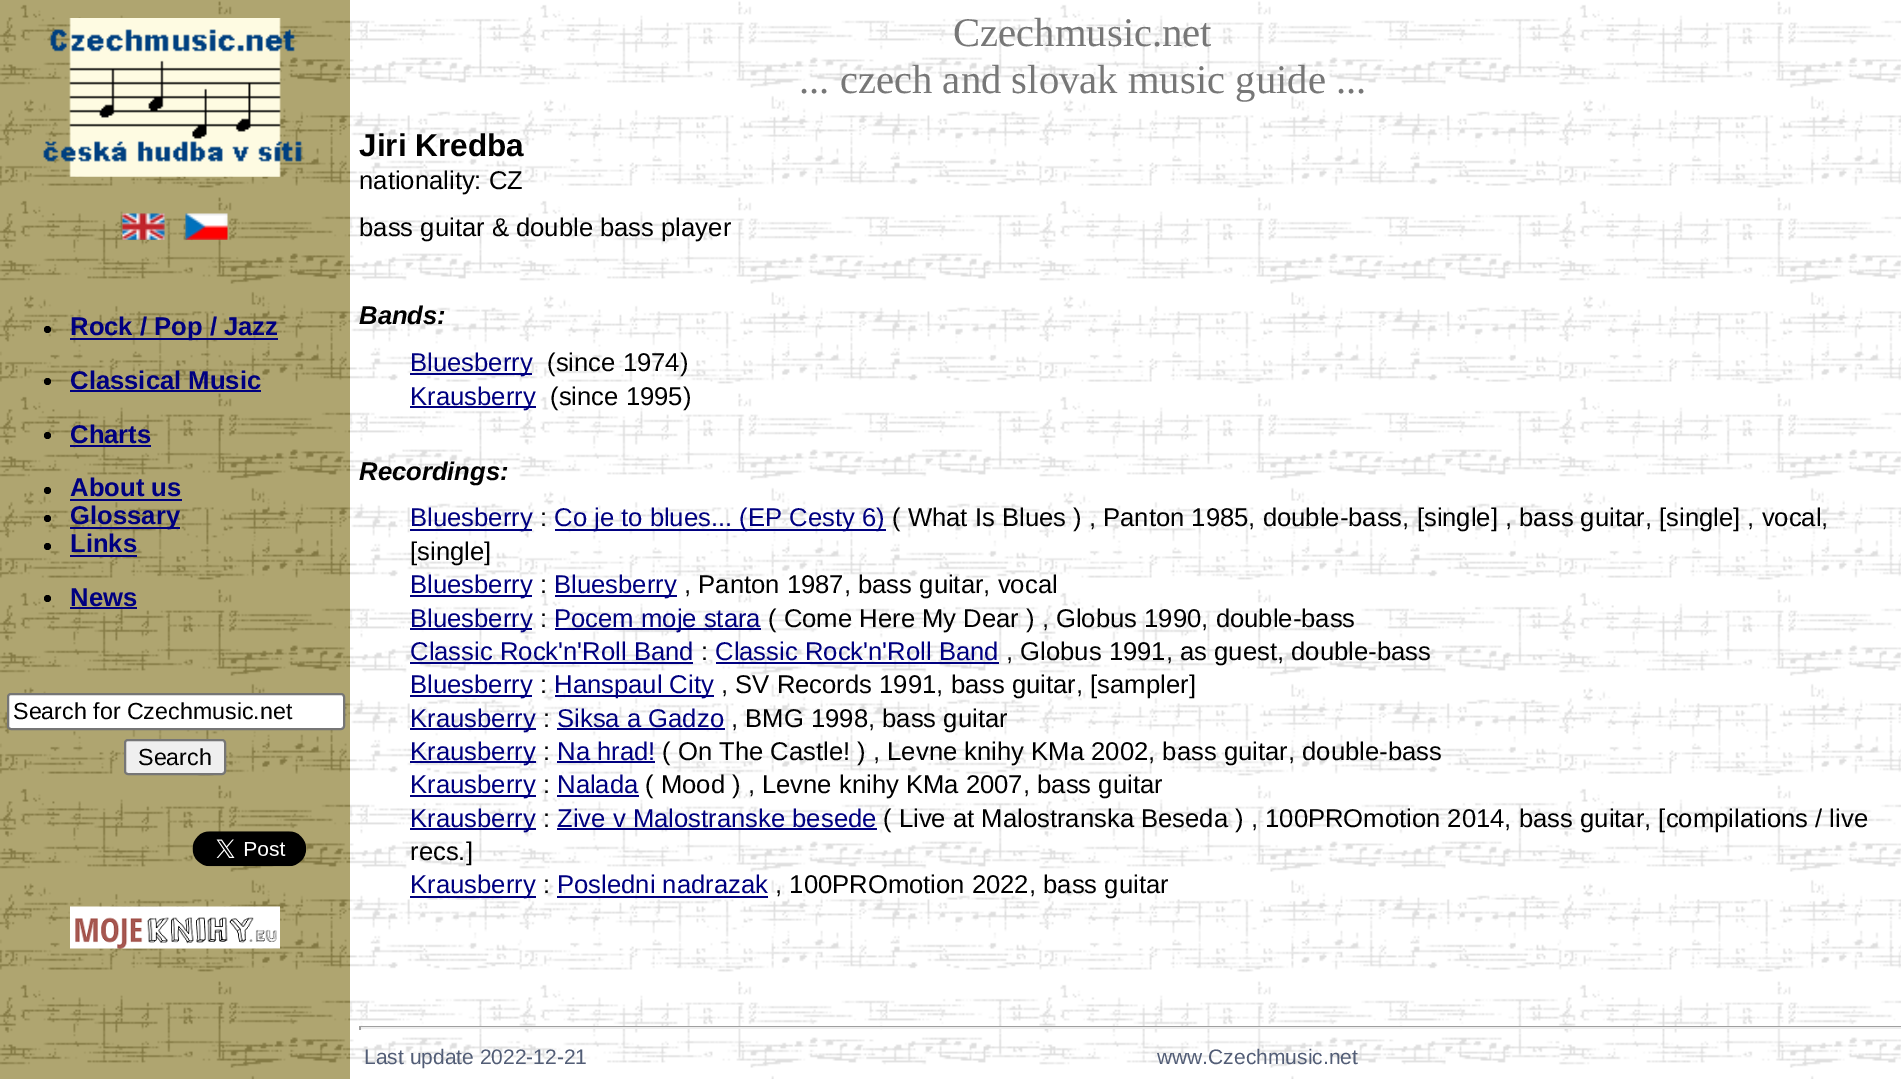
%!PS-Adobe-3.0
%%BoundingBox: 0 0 1901 1079
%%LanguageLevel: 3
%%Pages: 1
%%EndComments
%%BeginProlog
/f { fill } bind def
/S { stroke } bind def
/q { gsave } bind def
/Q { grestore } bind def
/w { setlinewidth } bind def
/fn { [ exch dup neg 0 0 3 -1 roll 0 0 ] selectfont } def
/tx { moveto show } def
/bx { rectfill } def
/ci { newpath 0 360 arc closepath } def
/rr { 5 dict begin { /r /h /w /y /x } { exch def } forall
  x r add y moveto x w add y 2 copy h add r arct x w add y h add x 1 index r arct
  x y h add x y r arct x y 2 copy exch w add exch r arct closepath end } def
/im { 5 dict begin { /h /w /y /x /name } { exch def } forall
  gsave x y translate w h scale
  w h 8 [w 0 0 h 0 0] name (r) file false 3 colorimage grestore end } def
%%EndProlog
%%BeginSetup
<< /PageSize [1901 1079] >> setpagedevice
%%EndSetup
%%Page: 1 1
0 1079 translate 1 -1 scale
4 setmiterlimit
1 setgray
0 0 1901 1079 bx
(image0.raw) 350 1 1551 1078 im
(image1.raw) 0 0 350 1079 im
(image2.raw) 43 18 259 159 im
(image3.raw) 122 213 43 27 im
(image4.raw) 185 213 43 27 im
0 setgray
47.5 329.5 3.5 ci f
0 0 0.502 setrgbcolor
70 338 208 2 bx
/LiberationSans-Bold 25.65 fn
(Rock / Pop / Jazz) 70 335 tx
0 setgray
47.5 381.5 3.5 ci f
0 0 0.502 setrgbcolor
(Classical Music) 70 389 tx
70 390 191 2 bx
0 setgray
47.5 435.5 3.5 ci f
0 0 0.502 setrgbcolor
(Charts) 70 443 tx
70 445 81 2 bx
0 setgray
47.5 490.5 3.5 ci f
0 0 0.502 setrgbcolor
(About us) 70 496 tx
70 499 112 2 bx
0 setgray
47.5 518.5 3.5 ci f
0 0 0.502 setrgbcolor
70 527 110 2 bx
(Glossary) 70 524 tx
0 setgray
47.5 546.5 3.5 ci f
0 0 0.502 setrgbcolor
(Links) 70 552 tx
70 555 67 2 bx
0 setgray
47.5 598.5 3.5 ci f
0 0 0.502 setrgbcolor
(News) 70 606 tx
70 607 67 2 bx
1 setgray
8 694 336 35 3 rr q f Q
0.463 setgray
2 w
S
/LiberationSans-Regular 23.25 fn
0 setgray
(Search for Czechmusic.net) 13 719 tx
0.937 setgray
125 740 100 34 3 rr q f Q
0.463 setgray
S
0 setgray
(Search) 138 765 tx
(image5.raw) 192 831 115 36 im
(image6.raw) 70 906 210 43 im
/LiberationSerif-Regular 40.7 fn
0.467 setgray
(Czechmusic.net) 953 46 tx
(... czech and slovak music guide ...) 799 93 tx
/LiberationSans-Bold 31.5 fn
0 setgray
(Jiri Kredba) 359 156 tx
/LiberationSans-Regular 25.65 fn
(nationality: CZ) 359 189 tx
(bass guitar & double bass player) 359 236 tx
/LiberationSans-BoldItalic 25.65 fn
(Bands:) 359 324 tx
0 0 0.502 setrgbcolor
410 373 122 2 bx
/LiberationSans-Regular 25.65 fn
(Bluesberry) 410 371 tx
0 setgray
(\(since 1974\)) 547 371 tx
0 0 0.502 setrgbcolor
410 406 126 2 bx
(Krausberry) 410 405 tx
0 setgray
(\(since 1995\)) 550 405 tx
/LiberationSans-BoldItalic 25.65 fn
(Recordings:) 359 480 tx
0 0 0.502 setrgbcolor
410 529 122 2 bx
/LiberationSans-Regular 25.65 fn
(Bluesberry) 410 526 tx
0 setgray
(:) 540 526 tx
0 0 0.502 setrgbcolor
555 529 331 2 bx
(Co je to blues... \(EP Cesty 6\)) 554 526 tx
0 setgray
(\( What Is Blues \) , Panton 1985, double-bass, [single] , bass guitar, [single] , vocal,) 892 526 tx
([single]) 410 560 tx
0 0 0.502 setrgbcolor
410 595 122 2 bx
(Bluesberry) 410 593 tx
0 setgray
(:) 540 593 tx
0 0 0.502 setrgbcolor
555 595 122 2 bx
(Bluesberry) 554 593 tx
0 setgray
(, Panton 1987, bass guitar, vocal) 684 593 tx
0 0 0.502 setrgbcolor
410 628 122 2 bx
(Bluesberry) 410 627 tx
0 setgray
(:) 540 627 tx
0 0 0.502 setrgbcolor
555 628 206 2 bx
(Pocem moje stara) 554 627 tx
0 setgray
(\( Come Here My Dear \) , Globus 1990, double-bass) 768 627 tx
0 0 0.502 setrgbcolor
(Classic Rock'n'Roll Band) 410 660 tx
410 662 283 2 bx
0 setgray
(:) 701 660 tx
0 0 0.502 setrgbcolor
(Classic Rock'n'Roll Band) 715 660 tx
716 662 283 2 bx
0 setgray
(, Globus 1991, as guest, double-bass) 1006 660 tx
0 0 0.502 setrgbcolor
410 695 122 2 bx
(Bluesberry) 410 693 tx
0 setgray
(:) 540 693 tx
0 0 0.502 setrgbcolor
555 695 159 2 bx
(Hanspaul City) 554 693 tx
0 setgray
(, SV Records 1991, bass guitar, [sampler]) 721 693 tx
0 0 0.502 setrgbcolor
410 728 126 2 bx
(Krausberry) 410 727 tx
0 setgray
(:) 543 727 tx
0 0 0.502 setrgbcolor
(Siksa a Gadzo) 557 727 tx
557 728 168 2 bx
0 setgray
(, BMG 1998, bass guitar) 731 727 tx
0 0 0.502 setrgbcolor
410 761 126 2 bx
(Krausberry) 410 760 tx
0 setgray
(:) 543 760 tx
0 0 0.502 setrgbcolor
(Na hrad!) 557 760 tx
557 761 98 2 bx
0 setgray
(\( On The Castle! \) , Levne knihy KMa 2002, bass guitar, double-bass) 662 760 tx
0 0 0.502 setrgbcolor
410 795 126 2 bx
(Krausberry) 410 793 tx
0 setgray
(:) 543 793 tx
0 0 0.502 setrgbcolor
(Nalada) 557 793 tx
557 795 82 2 bx
0 setgray
(\( Mood \) , Levne knihy KMa 2007, bass guitar) 645 793 tx
0 0 0.502 setrgbcolor
410 828 126 2 bx
(Krausberry) 410 827 tx
0 setgray
(:) 543 827 tx
0 0 0.502 setrgbcolor
(Zive v Malostranske besede) 557 827 tx
557 828 320 2 bx
0 setgray
(\( Live at Malostranska Beseda \) , 100PROmotion 2014, bass guitar, [compilations / live) 883 827 tx
(recs.]) 410 860 tx
0 0 0.502 setrgbcolor
410 896 126 2 bx
(Krausberry) 410 893 tx
0 setgray
(:) 543 893 tx
0 0 0.502 setrgbcolor
(Posledni nadrazak) 557 893 tx
557 896 211 2 bx
0 setgray
(, 100PROmotion 2022, bass guitar) 775 893 tx
0.624 setgray
359 1026 1542 1 bx
0.933 setgray
359 1027 1542 2 bx
0.624 setgray
359 1026 2 4 bx
/LiberationSans-Regular 21 fn
0.322 0.365 0.463 setrgbcolor
(Last update 2022-12-21) 364 1064 tx
(www.Czechmusic.net) 1157 1064 tx
showpage
%%EOF
